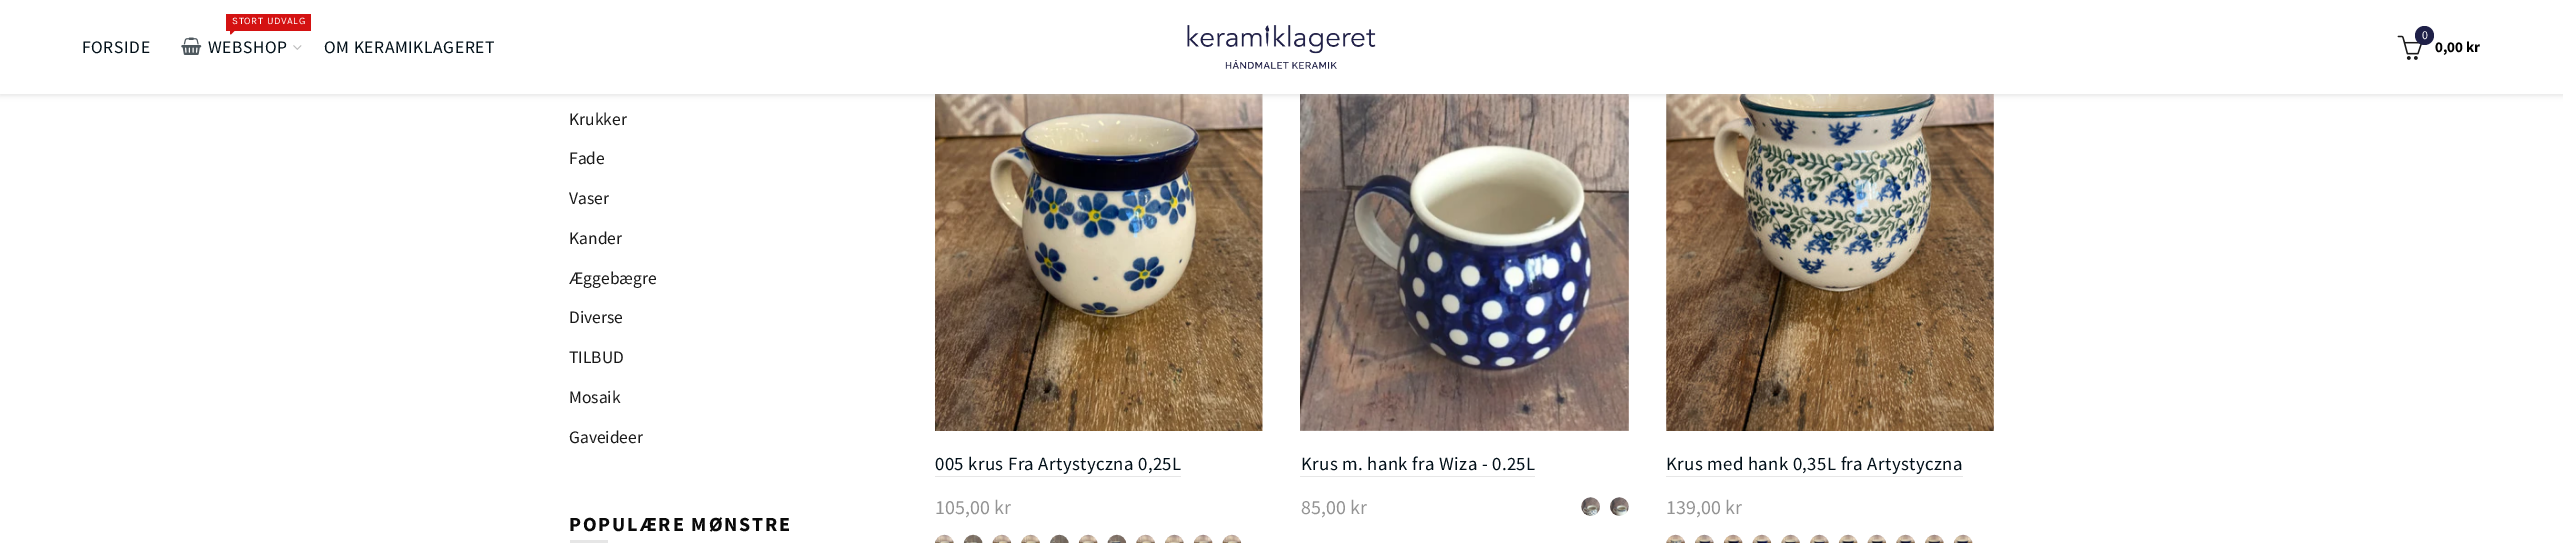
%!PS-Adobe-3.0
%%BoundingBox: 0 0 2563 543
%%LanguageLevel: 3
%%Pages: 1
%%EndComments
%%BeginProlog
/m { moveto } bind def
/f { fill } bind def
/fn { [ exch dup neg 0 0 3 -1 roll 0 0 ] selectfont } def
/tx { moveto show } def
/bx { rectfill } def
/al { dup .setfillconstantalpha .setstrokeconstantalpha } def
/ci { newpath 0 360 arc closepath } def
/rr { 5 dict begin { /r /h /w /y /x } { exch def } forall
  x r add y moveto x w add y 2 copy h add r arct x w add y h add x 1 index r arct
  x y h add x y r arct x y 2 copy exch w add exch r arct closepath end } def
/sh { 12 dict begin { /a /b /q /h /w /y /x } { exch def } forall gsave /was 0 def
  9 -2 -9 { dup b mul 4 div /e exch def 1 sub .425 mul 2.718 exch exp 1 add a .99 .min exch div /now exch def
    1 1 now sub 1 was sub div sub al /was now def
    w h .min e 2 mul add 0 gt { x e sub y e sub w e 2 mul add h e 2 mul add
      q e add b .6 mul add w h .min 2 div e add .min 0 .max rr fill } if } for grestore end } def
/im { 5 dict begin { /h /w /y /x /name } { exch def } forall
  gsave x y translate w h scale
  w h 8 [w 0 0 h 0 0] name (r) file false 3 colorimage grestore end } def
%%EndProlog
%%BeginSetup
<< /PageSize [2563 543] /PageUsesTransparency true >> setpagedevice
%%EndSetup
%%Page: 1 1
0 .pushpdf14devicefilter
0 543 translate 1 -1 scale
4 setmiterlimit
1 setgray
0 0 2563 543 bx
(image5.raw) 935 94 328 337 im
(image17.raw) 1300 94 329 337 im
(image20.raw) 1666 94 328 337 im
0.745 setgray
0 1 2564 94 0 3 0.5 sh
1 setgray
0 0 2563 94 bx
/SourceSansPro-Regular 17.5 fn
0.008 0.063 0.098 setrgbcolor
82 53 m 0.6 0 (FORSIDE) ashow
0.831 0.071 0.071 setrgbcolor
226 14 85 17 bx
/Karla-Regular 10 fn
1 setgray
232 24 m 0.6 0 (STORT UDVALG) ashow
(image0.raw) 230 31 5 4 im
(image1.raw) 181 37 21 18 im
/SourceSansPro-Regular 17.5 fn
0.008 0.063 0.098 setrgbcolor
208 53 m 0.6 0 (WEBSHOP) ashow
(image2.raw) 293 45 9 5 im
324 53 m 0.6 0 (OM KERAMIKLAGERET) ashow
(image3.raw) 1187 25 189 44 im
(image4.raw) 2397 35 25 25 im
0.122 0.125 0.282 setrgbcolor
2424.5 35.5 9.5 ci f
/SourceSansPro-Regular 12 fn
1 setgray
(0) 2422 39 tx
/SourceSansPro-Bold 15 fn
0 setgray
(0,00 kr) 2435 52 tx
/SourceSansPro-Regular 17.5 fn
0.102 setgray
(Krukker) 569 125 tx
(Fade) 569 164 tx
(Vaser) 569 204 tx
(Kander) 569 244 tx
(Æggebægre) 569 284 tx
(Diverse) 569 323 tx
(TILBUD) 569 363 tx
(Mosaik) 569 403 tx
(Gaveideer) 569 443 tx
/SourceSansPro-Bold 20 fn
0.039 setgray
569 531 m 1.9 0 (POPULÆRE MØNSTRE) ashow
0.902 setgray
570 540 38 3 bx
/SourceSansPro-Regular 18.75 fn
0.008 0.063 0.098 setrgbcolor
935 470 m 0.4 0 (005 krus Fra Artystyczna 0,25L) ashow
0.902 setgray
935 476 246 1 bx
/SourceSansPro-Regular 20 fn
0.58 setgray
(105,00 kr) 935 514 tx
(image6.raw) 935 534 19 9 im
(image7.raw) 963 534 20 9 im
(image8.raw) 992 534 20 9 im
(image9.raw) 1021 534 19 9 im
(image10.raw) 1050 534 19 9 im
(image11.raw) 1078 534 20 9 im
(image12.raw) 1107 534 20 9 im
(image13.raw) 1136 534 19 9 im
(image14.raw) 1165 534 19 9 im
(image15.raw) 1193 534 20 9 im
(image16.raw) 1222 534 20 9 im
/SourceSansPro-Regular 18.75 fn
0.008 0.063 0.098 setrgbcolor
1301 470 m 0.4 0 (Krus m. hank fra Wiza - 0.25L) ashow
0.902 setgray
1300 476 235 1 bx
/SourceSansPro-Regular 20 fn
0.58 setgray
(85,00 kr) 1301 514 tx
(image18.raw) 1581 497 19 19 im
(image19.raw) 1610 497 19 19 im
/SourceSansPro-Regular 18.75 fn
0.008 0.063 0.098 setrgbcolor
1666 470 m 0.4 0 (Krus med hank 0,35L fra Artystyczna) ashow
0.902 setgray
1666 476 297 1 bx
/SourceSansPro-Regular 20 fn
0.58 setgray
(139,00 kr) 1666 514 tx
(image21.raw) 1666 534 19 9 im
(image22.raw) 1695 534 19 9 im
(image23.raw) 1723 534 20 9 im
(image24.raw) 1752 534 20 9 im
(image25.raw) 1781 534 19 9 im
(image26.raw) 1810 534 19 9 im
(image27.raw) 1838 534 20 9 im
(image28.raw) 1867 534 20 9 im
(image29.raw) 1896 534 19 9 im
(image30.raw) 1925 534 19 9 im
(image31.raw) 1953 534 20 9 im
.poppdf14devicefilter showpage
%%EOF
